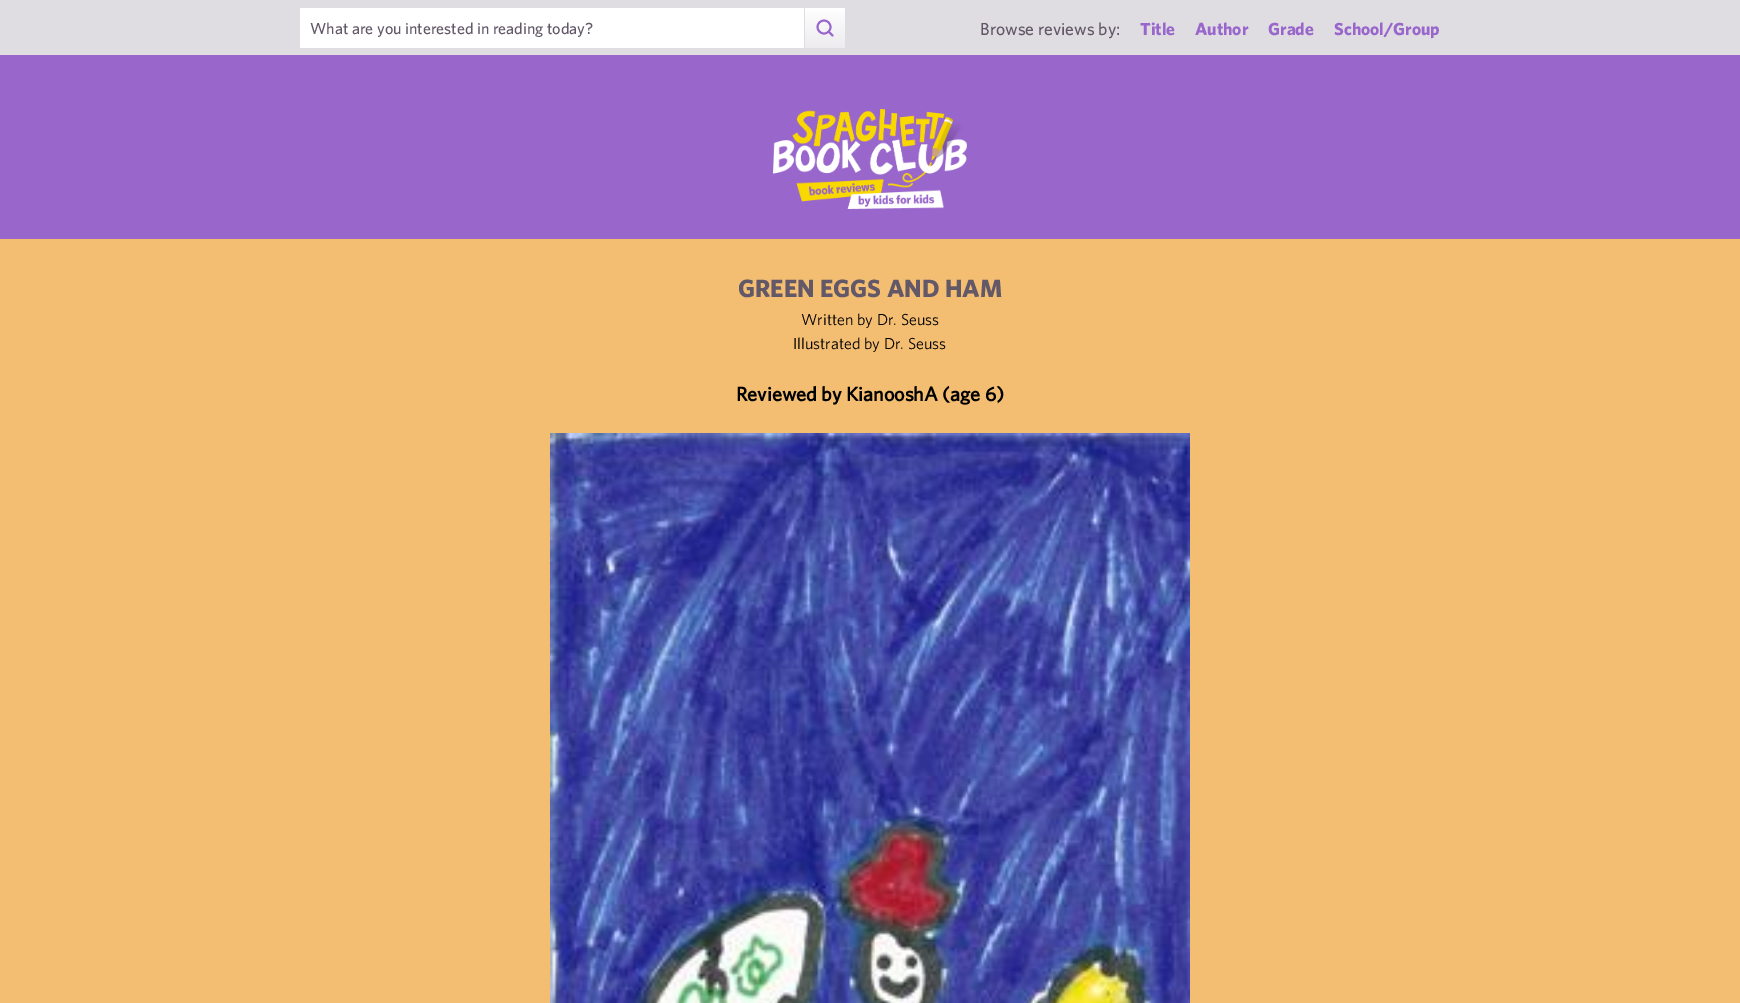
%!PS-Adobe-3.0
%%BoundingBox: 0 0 1740 1003
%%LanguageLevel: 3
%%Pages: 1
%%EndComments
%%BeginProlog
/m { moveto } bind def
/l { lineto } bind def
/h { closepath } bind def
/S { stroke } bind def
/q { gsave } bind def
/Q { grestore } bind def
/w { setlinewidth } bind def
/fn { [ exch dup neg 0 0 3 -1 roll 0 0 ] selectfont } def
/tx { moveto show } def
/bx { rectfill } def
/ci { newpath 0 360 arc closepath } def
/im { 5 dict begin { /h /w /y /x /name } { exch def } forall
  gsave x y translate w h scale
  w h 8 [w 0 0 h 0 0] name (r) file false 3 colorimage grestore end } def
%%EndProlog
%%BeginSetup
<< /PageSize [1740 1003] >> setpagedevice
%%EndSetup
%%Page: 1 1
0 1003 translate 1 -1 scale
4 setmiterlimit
0.6 0.4 0.8 setrgbcolor
0 0 1740 1003 bx
0.878 0.867 0.886 setrgbcolor
0 0 1740 55 bx
1 setgray
300 8 504 40 bx
/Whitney-Medium 16 fn
0.384 0.345 0.408 setrgbcolor
(What are you interested in reading today?) 310 34 tx
q 805 8 m 845 8 l 845 48 l 805 48 l h clip newpath
<< /ShadingType 2 /ColorSpace /DeviceRGB /Coords [806 48 806 -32] /Extend [true true] /Function << /FunctionType 3 /Domain [0 1] /Functions [<< /FunctionType 2 /Domain [0 1] /C0 [0.929 0.922 0.933] /C1 [1 1 1] /N 1 >> << /FunctionType 2 /Domain [0 1] /C0 [1 1 1] /C1 [1 1 1] /N 1 >>] /Bounds [0.5] /Encode [0 1 0 1] >> >> shfill Q
0.6 0.4 0.8 setrgbcolor
1.9 w
824 27 6.5 ci S
1 setlinecap
1 setlinejoin
832.5 35.5 m 829 32 l S
/Whitney-Medium 17.5 fn
0.384 0.345 0.408 setrgbcolor
(Browse reviews by:) 980 35 tx
/Whitney-Bold 17.5 fn
0.6 0.4 0.8 setrgbcolor
(Title) 1140 35 tx
(Author) 1195 35 tx
(Grade) 1268 35 tx
(School/Group) 1334 35 tx
(image0.raw) 773 109 194 100 im
0.953 0.741 0.447 setrgbcolor
0 239 1740 764 bx
/Whitney-Bold 25 fn
0.384 0.345 0.408 setrgbcolor
(GREEN EGGS AND HAM) 738 297 tx
/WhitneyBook-Regular 16 fn
0 setgray
(Written by Dr. Seuss) 801 325 tx
(Illustrated by Dr. Seuss) 793 349 tx
/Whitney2-Bold 20 fn
(Reviewed by KianooshA \(age 6\)) 736 401 tx
(image1.raw) 550 433 640 570 im
showpage
%%EOF
